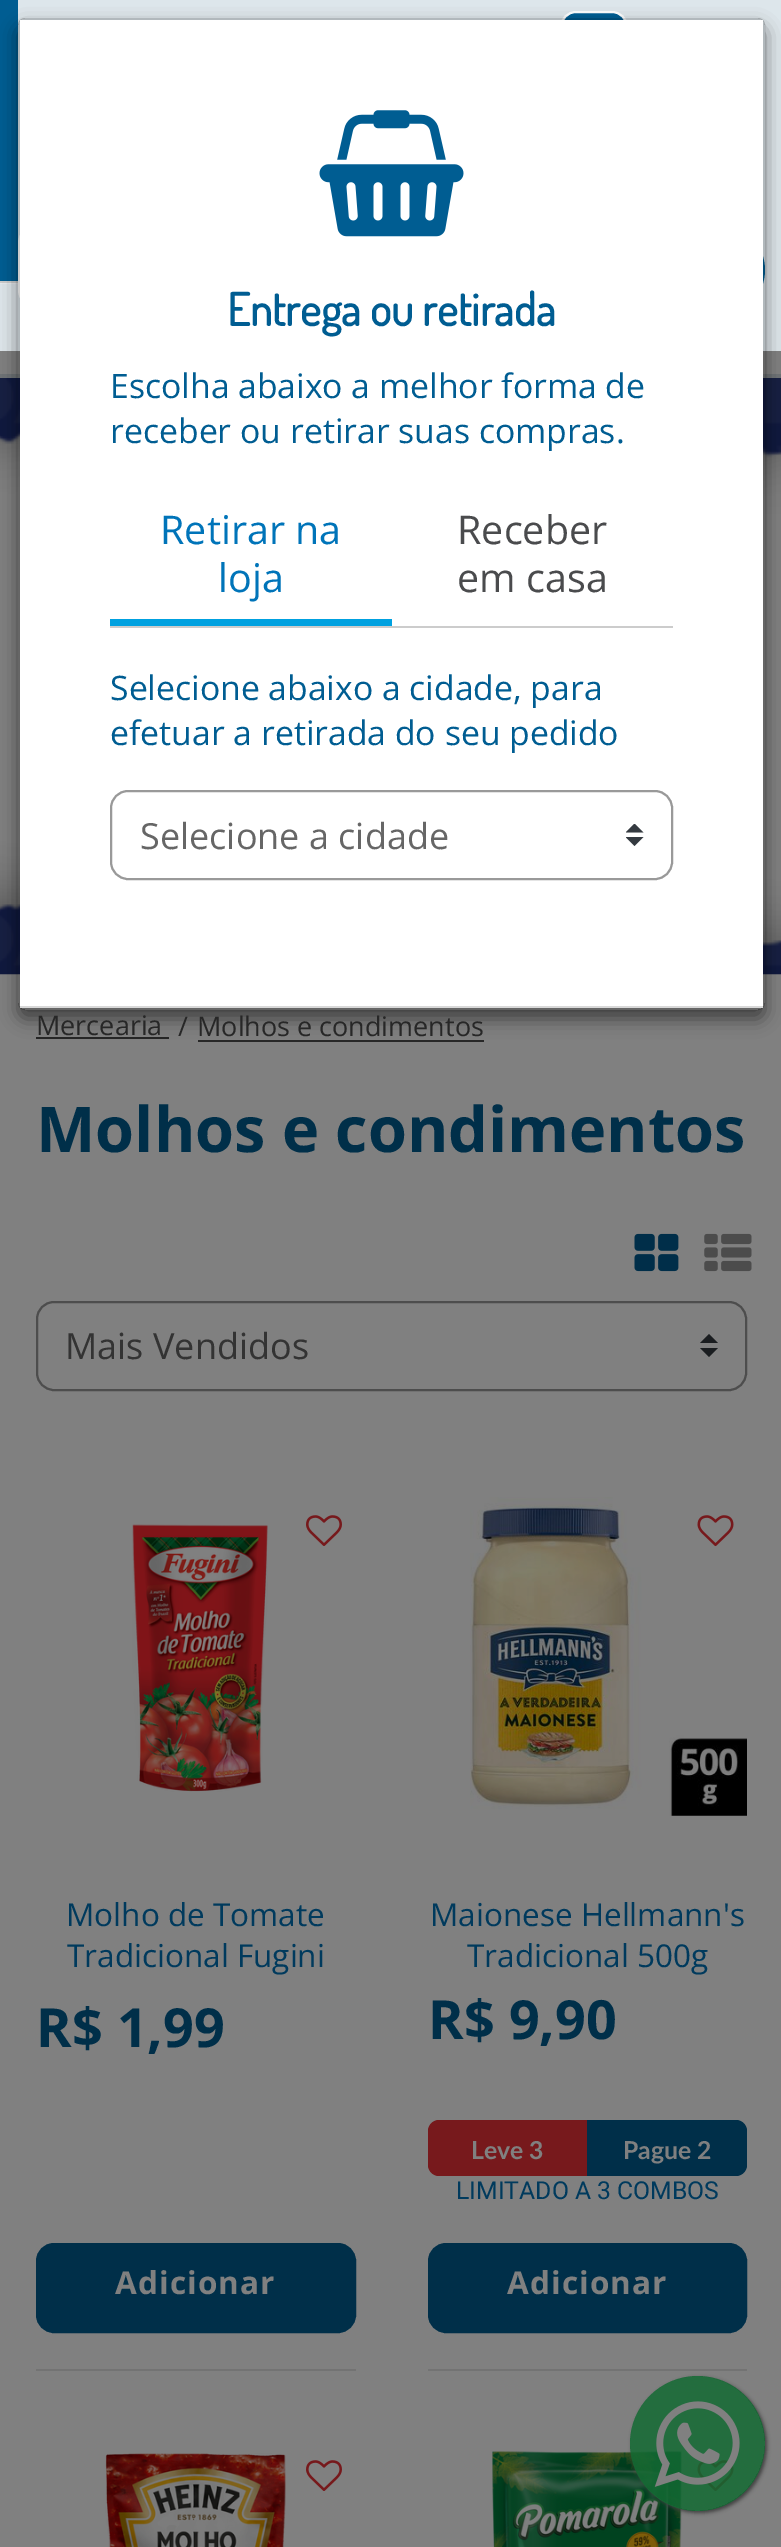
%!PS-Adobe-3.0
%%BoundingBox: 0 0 781 2547
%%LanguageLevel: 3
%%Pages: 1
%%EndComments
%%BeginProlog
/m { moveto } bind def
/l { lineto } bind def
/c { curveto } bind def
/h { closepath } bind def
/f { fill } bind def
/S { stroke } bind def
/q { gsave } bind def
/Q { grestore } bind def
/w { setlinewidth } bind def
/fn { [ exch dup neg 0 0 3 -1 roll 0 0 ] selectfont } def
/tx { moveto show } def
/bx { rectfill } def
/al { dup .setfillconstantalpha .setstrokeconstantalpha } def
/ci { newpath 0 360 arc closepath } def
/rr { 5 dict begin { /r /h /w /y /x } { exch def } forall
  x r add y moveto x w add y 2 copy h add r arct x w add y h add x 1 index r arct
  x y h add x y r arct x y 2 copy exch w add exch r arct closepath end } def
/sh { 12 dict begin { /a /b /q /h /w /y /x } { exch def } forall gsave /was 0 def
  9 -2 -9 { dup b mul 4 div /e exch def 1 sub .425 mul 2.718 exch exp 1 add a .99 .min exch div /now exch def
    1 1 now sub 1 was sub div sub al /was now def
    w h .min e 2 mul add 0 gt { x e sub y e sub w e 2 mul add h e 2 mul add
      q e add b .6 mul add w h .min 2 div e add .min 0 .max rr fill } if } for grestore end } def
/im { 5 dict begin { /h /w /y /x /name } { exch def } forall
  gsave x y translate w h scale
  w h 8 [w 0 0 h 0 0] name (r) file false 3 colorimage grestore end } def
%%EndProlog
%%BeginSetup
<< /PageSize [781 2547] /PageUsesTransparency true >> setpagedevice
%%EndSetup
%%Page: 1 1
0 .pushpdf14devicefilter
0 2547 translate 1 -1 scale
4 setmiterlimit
0.502 setgray
0 0 781 2547 bx
0.435 0.451 0.463 setrgbcolor
0 374 781 4 bx
0.867 0.902 0.922 setrgbcolor
0 225 781 126 bx
0.91 0.925 0.937 setrgbcolor
0 283 18 1 bx
0.8 setgray
0 281 18 2 bx
0 0.365 0.573 setrgbcolor
0 0 18 281 bx
0.867 0.902 0.922 setrgbcolor
18 0 763 225 bx
0 0.365 0.573 setrgbcolor
561 12 66 30 15 rr q f Q
1 setgray
2 w
S
19 226 723 81 17 rr S
0 0.365 0.573 setrgbcolor
720 270 45 ci f
(image1.raw) 0 378 781 597 im
0.153 setgray
36 1037 133 2 bx
198 1040 286 2 bx
q
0 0 m 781 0 l 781 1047 l 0 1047 l h 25 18 m 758 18 l 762 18 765 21 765 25 c 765 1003 l 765 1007 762 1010 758 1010 c 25 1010 l 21 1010 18 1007 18 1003 c 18 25 l 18 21 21 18 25 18 c h eoclip newpath
0 setgray
18 27 747 992 7 9 0.5 sh
Q
0.2 al
0 setgray
19 19 745 990 6 rr S
1 al
1 setgray
20 20 743 986 bx
0.847 setgray
20 1006 743 2 bx
(image0.raw) 319 110 145 127 im
/Dosis-Bold 45 fn
0 0.365 0.573 setrgbcolor
(Entrega ou retirada) 227 326 tx
/OpenSans-Regular 33.75 fn
(Escolha abaixo a melhor forma de) 110 398 tx
(receber ou retirar suas compras.) 110 443 tx
0.8 setgray
110 626 563 2 bx
0 0.631 0.878 setrgbcolor
110 619 282 7 bx
/OpenSans-Regular 39.5 fn
0 0.455 0.725 setrgbcolor
(Retirar na) 160 544 tx
(loja) 218 592 tx
0.29 0.294 0.302 setrgbcolor
(Receber) 457 544 tx
(em casa) 457 592 tx
/OpenSans-Regular 33.75 fn
0 0.365 0.573 setrgbcolor
(Selecione abaixo a cidade, para) 110 700 tx
(efetuar a retirada do seu pedido) 110 745 tx
q
626 824 18 22 rectclip
0.204 0.227 0.251 setrgbcolor
634.5 823.5 m 625.5 832.5 l 643.5 832.5 l h 634.5 846 m 625.5 837 l 643.5 837 l h f
Q
0.6 setgray
111 791 561 88 17 rr S
/OpenSans-Regular 36 fn
0.4 setgray
(Selecione a cidade) 140 849 tx
/OpenSans-Regular 27 fn
0.153 setgray
(Mercearia) 36 1035 tx
(/) 178 1036 tx
(Molhos e condimentos) 197 1036 tx
/OpenSans-Bold 63 fn
0 0.184 0.286 setrgbcolor
(Molhos e condimentos) 36 1152 tx
(image2.raw) 634 1233 45 39 im
(image3.raw) 704 1233 48 39 im
0.102 0.114 0.125 setrgbcolor
709 1334 m 700 1343 l 718 1343 l h 709 1357 m 700 1348 l 718 1348 l h f
0.302 setgray
37 1302 709 88 17 rr S
/OpenSans-Regular 36 fn
0.2 setgray
(Mais Vendidos) 65 1359 tx
0.451 setgray
36 2369 320 2 bx
(image4.raw) 132 1524 136 268 im
(image5.raw) 306 1515 36 31 im
/OpenSans-Regular 31.5 fn
0 0.227 0.365 setrgbcolor
(Molho de Tomate) 66 1926 tx
(Tradicional Fugini) 67 1967 tx
/OpenSans-Bold 54 fn
0 0.184 0.286 setrgbcolor
(R$ 1,99) 36 2047 tx
37 2244 318 88 17 rr q f Q
S
/OpenSans-Bold 31.5 fn
0.502 setgray
115 2294 m 1.1 0 (Adicionar) ashow
0.451 setgray
428 2369 319 2 bx
(image6.raw) 470 1497 277 319 im
(image7.raw) 697 1515 37 32 im
/OpenSans-Regular 31.5 fn
0 0.227 0.365 setrgbcolor
(Maionese Hellmann's) 430 1926 tx
(Tradicional 500g) 467 1967 tx
/OpenSans-Bold 54 fn
0 0.184 0.286 setrgbcolor
(R$ 9,90) 428 2039 tx
0.467 0.098 0.11 setrgbcolor
439 2120 m 587 2120 l 587 2176 l 439 2176 l 433 2176 428 2171 428 2165 c 428 2131 l 428 2125 433 2120 439 2120 c h f
/Lato-Bold 24.75 fn
0.502 setgray
(Leve 3) 471 2159 tx
0 0.184 0.286 setrgbcolor
587 2120 m 736 2120 l 742 2120 747 2125 747 2131 c 747 2165 l 747 2171 742 2176 736 2176 c 587 2176 l h f
0.502 setgray
(Pague 2) 623 2159 tx
/Roboto-Regular 24.75 fn
0 0.227 0.365 setrgbcolor
(LIMITADO A 3 COMBOS) 456 2199 tx
0 0.184 0.286 setrgbcolor
429 2244 317 88 17 rr q f Q
S
/OpenSans-Bold 31.5 fn
0.502 setgray
507 2294 m 1.1 0 (Adicionar) ashow
(image8.raw) 105 2453 181 94 im
(image5.raw) 306 2460 36 31 im
(image9.raw) 492 2451 191 96 im
(image7.raw) 697 2460 37 32 im
q
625 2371 m 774 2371 l 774 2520 l 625 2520 l h 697.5 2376 m 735 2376 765 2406 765 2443.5 c 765 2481 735 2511 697.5 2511 c 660 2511 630 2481 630 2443.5 c 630 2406 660 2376 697.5 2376 c h eoclip newpath
0.251 setgray
632 2378 135 135 67.5 2 1 sh
Q
0.85 al
0.075 0.416 0.2 setrgbcolor
697.5 2443.5 67.5 ci f
1 al
(image10.raw) 654 2401 86 86 im
.poppdf14devicefilter showpage
%%EOF
